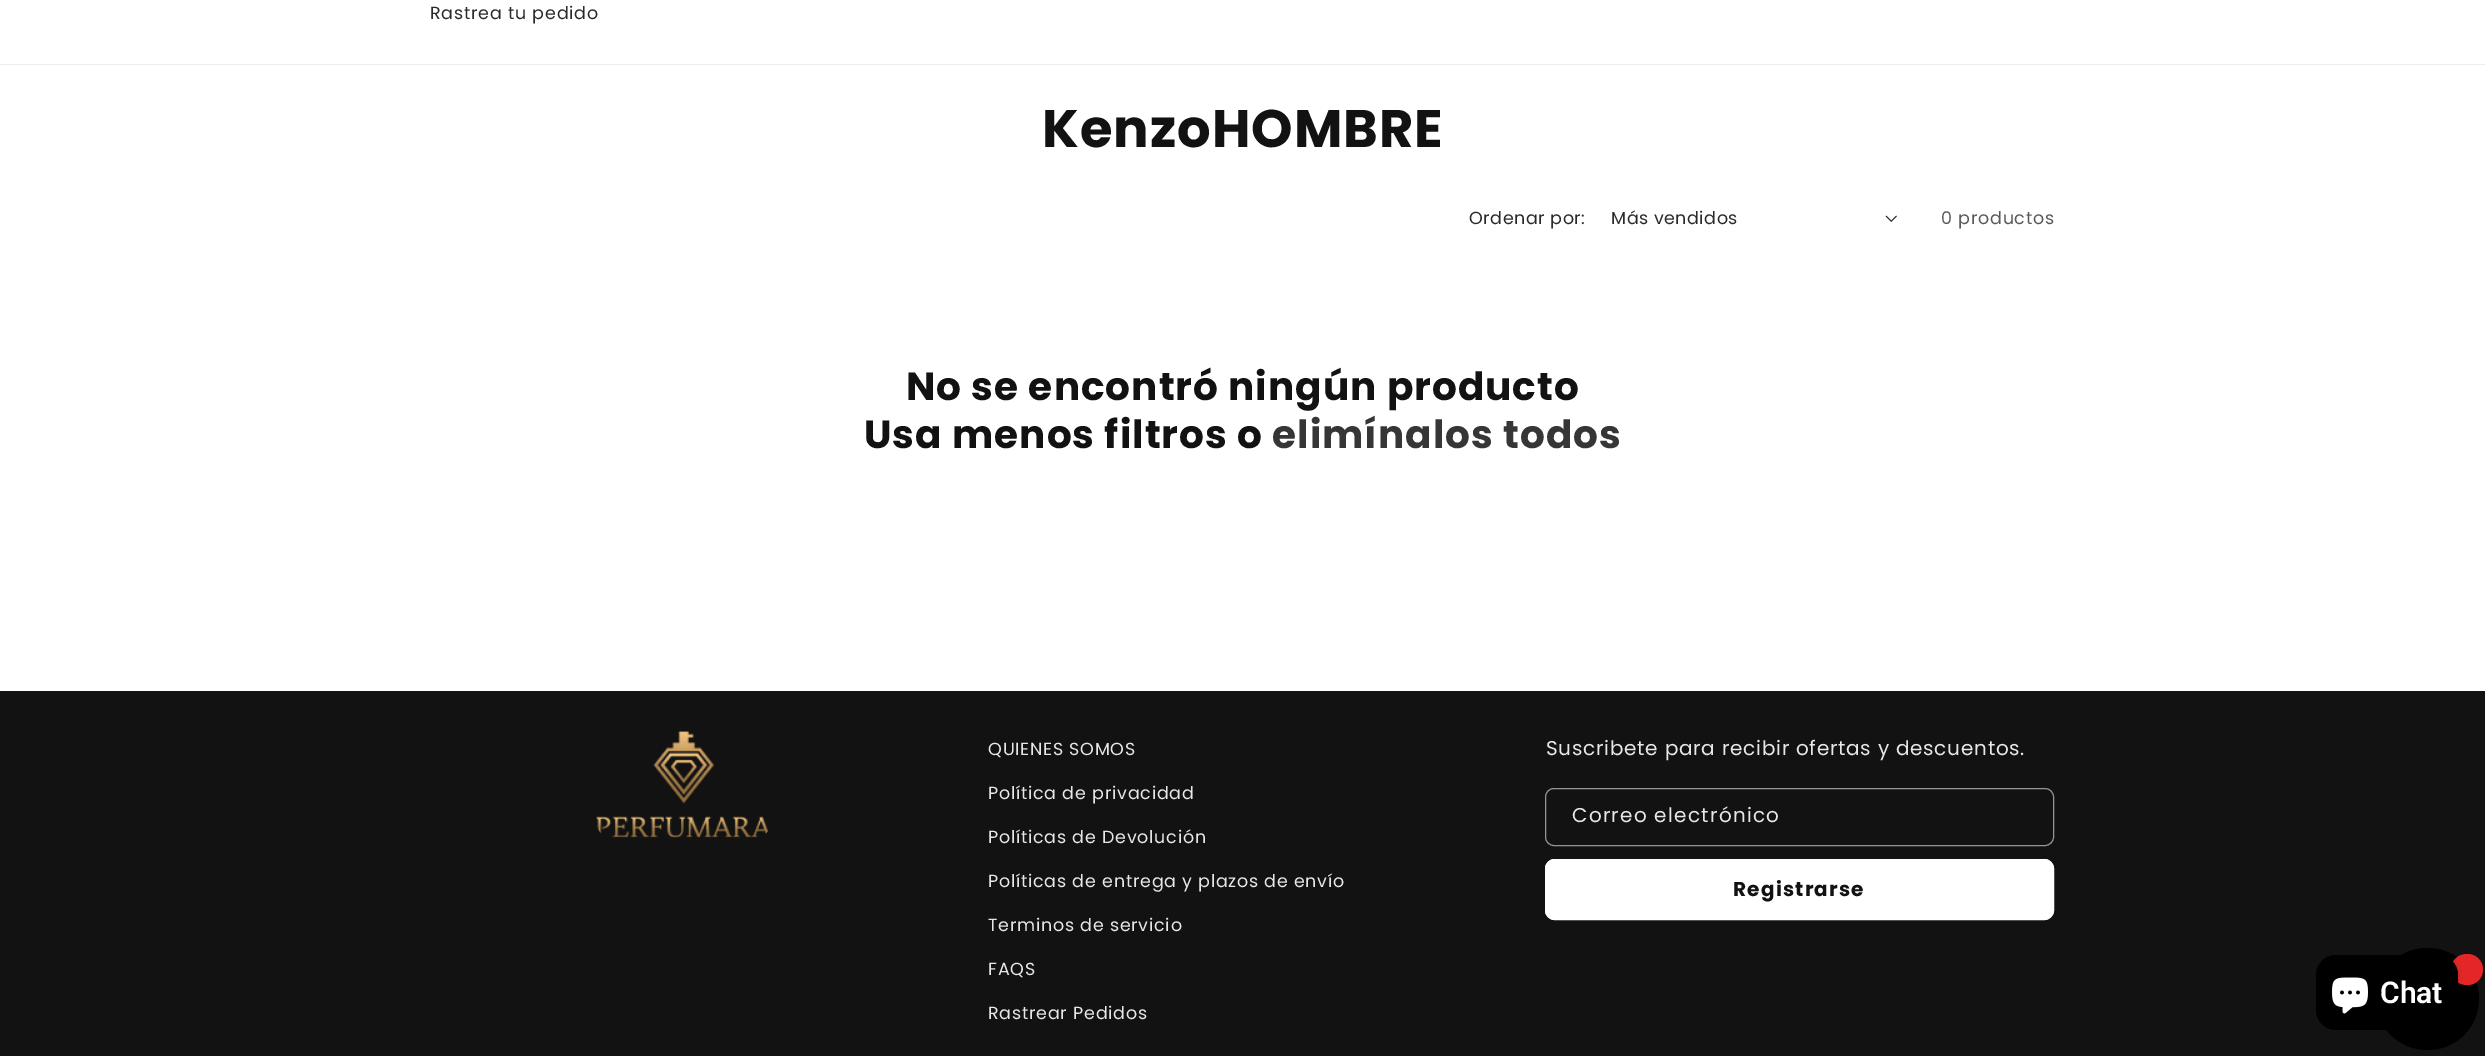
%!PS-Adobe-3.0
%%BoundingBox: 0 0 2485 1056
%%LanguageLevel: 3
%%Pages: 1
%%EndComments
%%BeginProlog
/m { moveto } bind def
/f { fill } bind def
/S { stroke } bind def
/w { setlinewidth } bind def
/fn { [ exch dup neg 0 0 3 -1 roll 0 0 ] selectfont } def
/tx { moveto show } def
/bx { rectfill } def
/al { dup .setfillconstantalpha .setstrokeconstantalpha } def
/rr { 5 dict begin { /r /h /w /y /x } { exch def } forall
  x r add y moveto x w add y 2 copy h add r arct x w add y h add x 1 index r arct
  x y h add x y r arct x y 2 copy exch w add exch r arct closepath end } def
/sh { 12 dict begin { /a /b /q /h /w /y /x } { exch def } forall gsave /was 0 def
  9 -2 -9 { dup b mul 4 div /e exch def 1 sub .425 mul 2.718 exch exp 1 add a .99 .min exch div /now exch def
    1 1 now sub 1 was sub div sub al /was now def
    w h .min e 2 mul add 0 gt { x e sub y e sub w e 2 mul add h e 2 mul add
      q e add b .6 mul add w h .min 2 div e add .min 0 .max rr fill } if } for grestore end } def
/im { 5 dict begin { /h /w /y /x /name } { exch def } forall
  gsave x y translate w h scale
  w h 8 [w 0 0 h 0 0] name (r) file false 3 colorimage grestore end } def
%%EndProlog
%%BeginSetup
<< /PageSize [2485 1056] /PageUsesTransparency true >> setpagedevice
%%EndSetup
%%Page: 1 1
0 .pushpdf14devicefilter
0 1056 translate 1 -1 scale
4 setmiterlimit
1 setgray
0 0 2485 1056 bx
0.925 setgray
0 64 2485 1 bx
/Poppins-Regular 17.5 fn
0.165 setgray
430 19 m 0.75 0 (Rastrea tu pedido) ashow
/Poppins-Bold 52.75 fn
0.071 setgray
1042 147 m 1 0 (KenzoHOMBRE) ashow
/Poppins-Regular 17.5 fn
0.165 setgray
1469 224 m 0.5 0 (Ordenar por:) ashow
1611 224 m 0.5 0 (Más vendidos) ashow
(image0.raw) 1885 215 12 7 im
0.349 setgray
1941 224 m 0.75 0 (0 productos) ashow
/Poppins-Bold 39 fn
0.071 setgray
906 400 m 1 0 (No se encontró ningún producto) ashow
864 448 m 1 0 (Usa menos filtros o) ashow
0.212 setgray
1272 448 m 1 0 (elimínalos todos) ashow
0.071 setgray
0 691 2485 365 bx
(image1.raw) 596 731 173 107 im
/Poppins-Regular 17.5 fn
0.906 setgray
988 755 m 0.75 0 (QUIENES SOMOS) ashow
988 799 m 0.75 0 (Política de privacidad) ashow
988 843 m 0.75 0 (Políticas de Devolución) ashow
988 887 m 0.75 0 (Políticas de entrega y plazos de envío) ashow
988 931 m 0.75 0 (Terminos de servicio) ashow
988 975 m 0.75 0 (FAQS) ashow
988 1019 m 0.75 0 (Rastrear Pedidos) ashow
/Poppins-Regular 20 fn
1546 755 m 0.75 0 (Suscribete para recibir ofertas y descuentos.) ashow
0.58 setgray
1545.5 788.5 508 57 8.5 rr S
0.906 setgray
1572 822 m 1.25 0 (Correo electrónico) ashow
1 setgray
1545 859 509 61 10 rr f
3 w
1546.5 860.5 506 58 8.5 rr S
/Poppins-Bold 20 fn
0.071 setgray
1733 896 m 1.25 0 (Registrarse) ashow
0 setgray
2376 948 103 102 51 rr f
0.894 0.149 0.149 setrgbcolor
2451 954 32 31 15.5 rr f
0 setgray
2316 955 142 75 20 3 0.15 sh
2316 955 142 75 20 rr f
(image2.raw) 2332 977 36 37 im
/Roboto-SemiBold 30 fn
1 setgray
(Chat) 2380 1003 tx
.poppdf14devicefilter showpage
%%EOF
